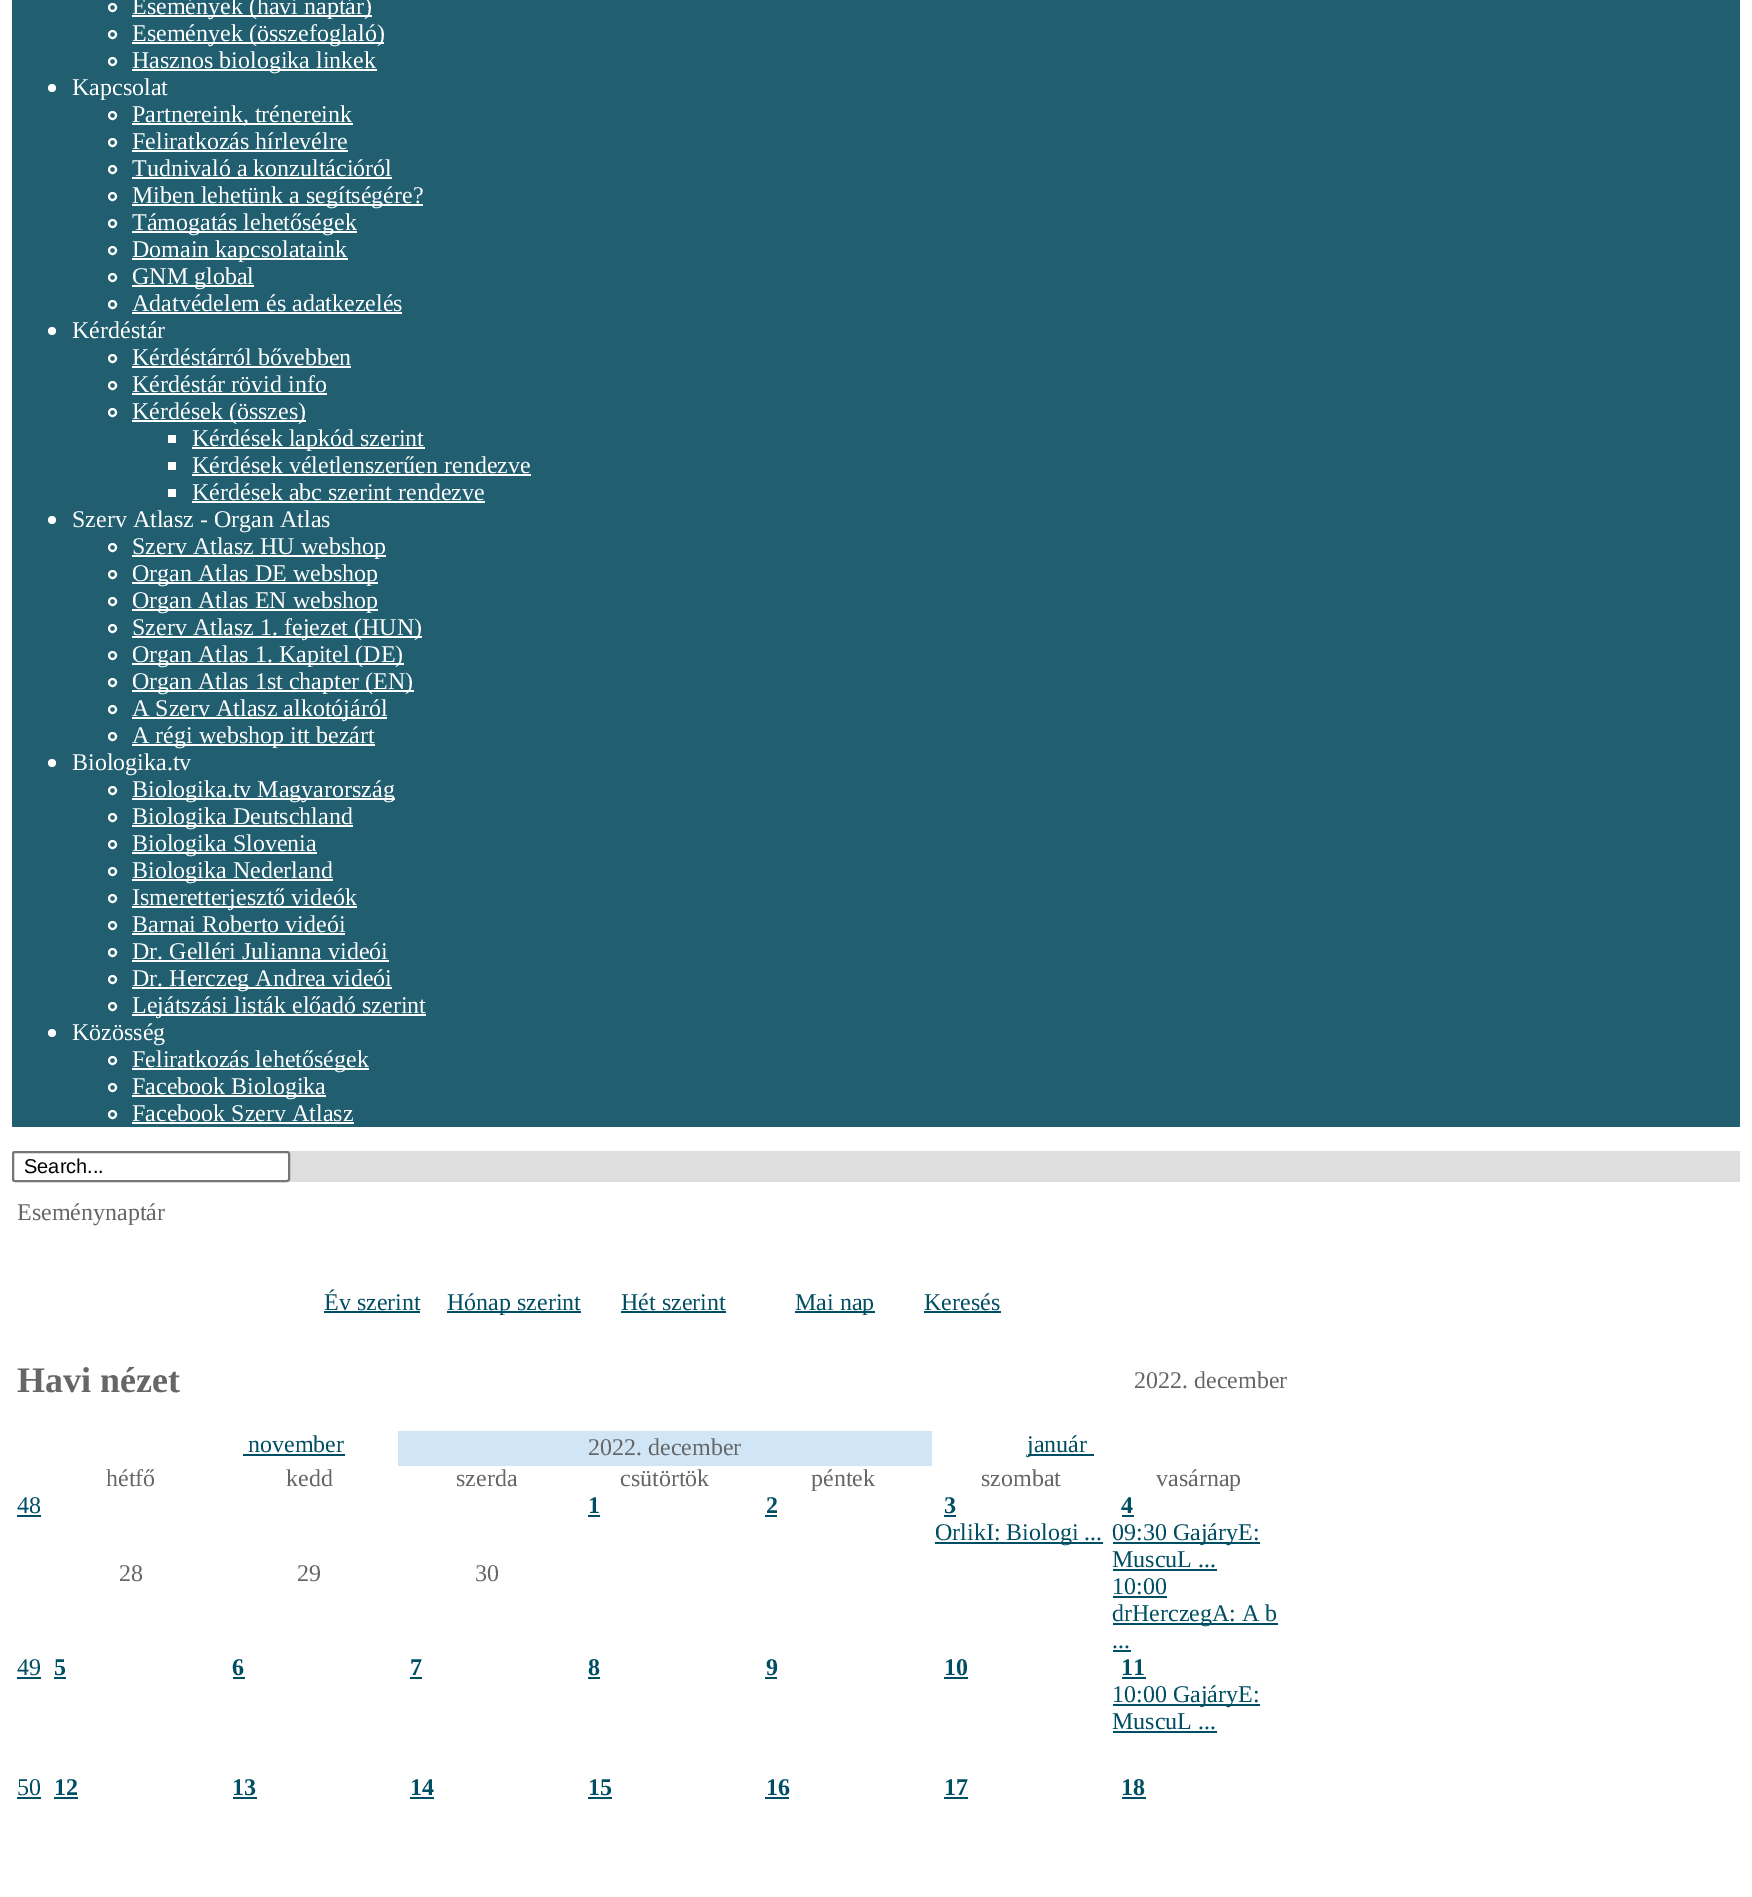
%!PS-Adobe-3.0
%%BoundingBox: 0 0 1752 1897
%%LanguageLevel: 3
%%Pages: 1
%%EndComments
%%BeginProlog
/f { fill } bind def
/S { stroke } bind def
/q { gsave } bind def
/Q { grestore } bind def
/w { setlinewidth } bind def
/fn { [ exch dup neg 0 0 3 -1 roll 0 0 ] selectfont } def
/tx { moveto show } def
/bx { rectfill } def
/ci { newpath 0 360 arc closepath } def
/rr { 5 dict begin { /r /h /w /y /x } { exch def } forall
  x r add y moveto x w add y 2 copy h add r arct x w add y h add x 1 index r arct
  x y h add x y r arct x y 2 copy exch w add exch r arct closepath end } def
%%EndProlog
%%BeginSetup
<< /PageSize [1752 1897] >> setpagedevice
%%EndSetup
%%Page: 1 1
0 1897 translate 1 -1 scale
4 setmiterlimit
1 setgray
0 0 1752 1897 bx
0.129 0.373 0.439 setrgbcolor
12 0 1728 1127 bx
1 setgray
2 w
112.5 7.5 3.5 ci S
132 15 240 2 bx
/LiberationSerif-Regular 24 fn
(Események \(havi naptár\)) 132 14 tx
112.5 34.5 3.5 ci S
132 42 252 2 bx
(Események \(összefoglaló\)) 132 41 tx
112.5 61.5 3.5 ci S
132 69 245 2 bx
(Hasznos biologika linkek) 132 68 tx
52 88 4 ci f
(Kapcsolat) 72 95 tx
112.5 115.5 3.5 ci S
132 123 221 2 bx
(Partnereink, trénereink) 132 122 tx
112.5 142.5 3.5 ci S
(Feliratkozás hírlevélre) 132 149 tx
132 150 216 2 bx
112.5 169.5 3.5 ci S
(Tudnivaló a konzultációról) 132 176 tx
132 177 260 2 bx
112.5 196.5 3.5 ci S
132 204 291 2 bx
(Miben lehetünk a segítségére?) 132 203 tx
112.5 223.5 3.5 ci S
132 231 225 2 bx
(Támogatás lehetőségek) 132 230 tx
112.5 250.5 3.5 ci S
132 258 216 2 bx
(Domain kapcsolataink) 132 257 tx
112.5 277.5 3.5 ci S
132 285 122 2 bx
(GNM global) 132 284 tx
112.5 304.5 3.5 ci S
(Adatvédelem és adatkezelés) 132 311 tx
132 312 270 2 bx
52 331 4 ci f
(Kérdéstár) 72 338 tx
112.5 358.5 3.5 ci S
(Kérdéstárról bővebben) 132 365 tx
132 366 219 2 bx
112.5 385.5 3.5 ci S
(Kérdéstár rövid info) 132 392 tx
132 393 195 2 bx
112.5 412.5 3.5 ci S
132 420 174 2 bx
(Kérdések \(összes\)) 132 419 tx
168 435 8 8 bx
192 447 233 2 bx
(Kérdések lapkód szerint) 192 446 tx
168 462 8 8 bx
(Kérdések véletlenszerűen rendezve) 192 473 tx
192 474 339 2 bx
168 489 8 8 bx
(Kérdések abc szerint rendezve) 192 500 tx
192 501 293 2 bx
52 520 4 ci f
(Szerv Atlasz - Organ Atlas) 72 527 tx
112.5 547.5 3.5 ci S
132 555 254 2 bx
(Szerv Atlasz HU webshop) 132 554 tx
112.5 574.5 3.5 ci S
132 582 246 2 bx
(Organ Atlas DE webshop) 132 581 tx
112.5 601.5 3.5 ci S
132 609 246 2 bx
(Organ Atlas EN webshop) 132 608 tx
112.5 628.5 3.5 ci S
132 636 290 2 bx
(Szerv Atlasz 1. fejezet \(HUN\)) 132 635 tx
112.5 655.5 3.5 ci S
132 663 272 2 bx
(Organ Atlas 1. Kapitel \(DE\)) 132 662 tx
112.5 682.5 3.5 ci S
132 690 282 2 bx
(Organ Atlas 1st chapter \(EN\)) 132 689 tx
112.5 709.5 3.5 ci S
132 717 255 2 bx
(A Szerv Atlasz alkotójáról) 132 716 tx
112.5 736.5 3.5 ci S
132 744 243 2 bx
(A régi webshop itt bezárt) 132 743 tx
52 763 4 ci f
(Biologika.tv) 72 770 tx
112.5 790.5 3.5 ci S
132 798 263 2 bx
(Biologika.tv Magyarország) 132 797 tx
112.5 817.5 3.5 ci S
132 825 221 2 bx
(Biologika Deutschland) 132 824 tx
112.5 844.5 3.5 ci S
132 852 185 2 bx
(Biologika Slovenia) 132 851 tx
112.5 871.5 3.5 ci S
132 879 201 2 bx
(Biologika Nederland) 132 878 tx
112.5 898.5 3.5 ci S
132 906 225 2 bx
(Ismeretterjesztő videók) 132 905 tx
112.5 925.5 3.5 ci S
(Barnai Roberto videói) 132 932 tx
132 933 213 2 bx
112.5 952.5 3.5 ci S
(Dr. Gelléri Julianna videói) 132 959 tx
132 960 257 2 bx
112.5 979.5 3.5 ci S
132 987 260 2 bx
(Dr. Herczeg Andrea videói) 132 986 tx
112.5 1006.5 3.5 ci S
132 1014 294 2 bx
(Lejátszási listák előadó szerint) 132 1013 tx
52 1033 4 ci f
(Közösség) 72 1040 tx
112.5 1060.5 3.5 ci S
132 1068 237 2 bx
(Feliratkozás lehetőségek) 132 1067 tx
112.5 1087.5 3.5 ci S
132 1095 194 2 bx
(Facebook Biologika) 132 1094 tx
112.5 1114.5 3.5 ci S
(Facebook Szerv Atlasz) 132 1121 tx
132 1122 222 2 bx
0.871 setgray
12 1151 1728 31 bx
1 setgray
13 1152 276 29 2 rr q f Q
0.463 setgray
S
/LiberationSans-Regular 20 fn
0 setgray
(Search...) 24 1173 tx
/LiberationSerif-Regular 24 fn
0.4 setgray
(Eseménynaptár) 17 1220 tx
0 0.306 0.388 setrgbcolor
(Év szerint) 324 1310 tx
324 1311 96 2 bx
447 1311 134 2 bx
(Hónap szerint) 447 1310 tx
(Hét szerint) 621 1310 tx
621 1311 105 2 bx
795 1311 80 2 bx
(Mai nap) 795 1310 tx
(Keresés) 924 1310 tx
924 1311 77 2 bx
/LiberationSerif-Bold 36 fn
0.4 setgray
(Havi nézet) 17 1392 tx
/LiberationSerif-Regular 24 fn
(2022. december) 1134 1388 tx
0 0.306 0.388 setrgbcolor
(november) 248 1452 tx
243 1454 102 2 bx
0.816 0.902 0.965 setrgbcolor
398 1431 534 35 bx
0.4 setgray
(2022. december) 588 1455 tx
0 0.306 0.388 setrgbcolor
1028 1454 66 2 bx
(január) 1027 1452 tx
0.4 setgray
(hétfő) 106 1486 tx
(kedd) 286 1486 tx
(szerda) 456 1486 tx
(csütörtök) 620 1486 tx
(péntek) 811 1486 tx
(szombat) 981 1486 tx
(vasárnap) 1156 1486 tx
0 0.306 0.388 setrgbcolor
(48) 17 1513 tx
17 1515 24 2 bx
0.4 setgray
(28) 119 1581 tx
(29) 297 1581 tx
(30) 475 1581 tx
/LiberationSerif-Bold 24 fn
0 0.306 0.388 setrgbcolor
(1) 588 1513 tx
588 1515 12 2 bx
(2) 766 1513 tx
765 1515 12 2 bx
(3) 944 1513 tx
944 1515 12 2 bx
935 1542 168 2 bx
/LiberationSerif-Regular 24 fn
(OrlikI: Biologi ...) 935 1540 tx
/LiberationSerif-Bold 24 fn
(4) 1121 1513 tx
1122 1515 12 2 bx
1113 1542 147 2 bx
/LiberationSerif-Regular 24 fn
(09:30 GajáryE:) 1112 1540 tx
(MuscuL ...) 1112 1567 tx
1113 1569 104 2 bx
(10:00) 1112 1594 tx
1113 1596 54 2 bx
1113 1623 165 2 bx
(drHerczegA: A b) 1112 1621 tx
(...) 1112 1648 tx
1113 1650 18 2 bx
(49) 17 1675 tx
17 1677 24 2 bx
/LiberationSerif-Bold 24 fn
(5) 54 1675 tx
54 1677 12 2 bx
(6) 232 1675 tx
233 1677 12 2 bx
(7) 410 1675 tx
410 1677 12 2 bx
(8) 588 1675 tx
588 1677 12 2 bx
(9) 766 1675 tx
765 1677 12 2 bx
(10) 944 1675 tx
944 1677 24 2 bx
(11) 1121 1675 tx
1122 1677 24 2 bx
1113 1704 147 2 bx
/LiberationSerif-Regular 24 fn
(10:00 GajáryE:) 1112 1702 tx
(MuscuL ...) 1112 1729 tx
1113 1731 104 2 bx
(50) 17 1795 tx
17 1797 24 2 bx
/LiberationSerif-Bold 24 fn
(12) 54 1795 tx
54 1797 24 2 bx
(13) 232 1795 tx
233 1797 24 2 bx
(14) 410 1795 tx
410 1797 24 2 bx
(15) 588 1795 tx
588 1797 24 2 bx
(16) 766 1795 tx
765 1797 24 2 bx
(17) 944 1795 tx
944 1797 24 2 bx
(18) 1121 1795 tx
1122 1797 24 2 bx
showpage
%%EOF
